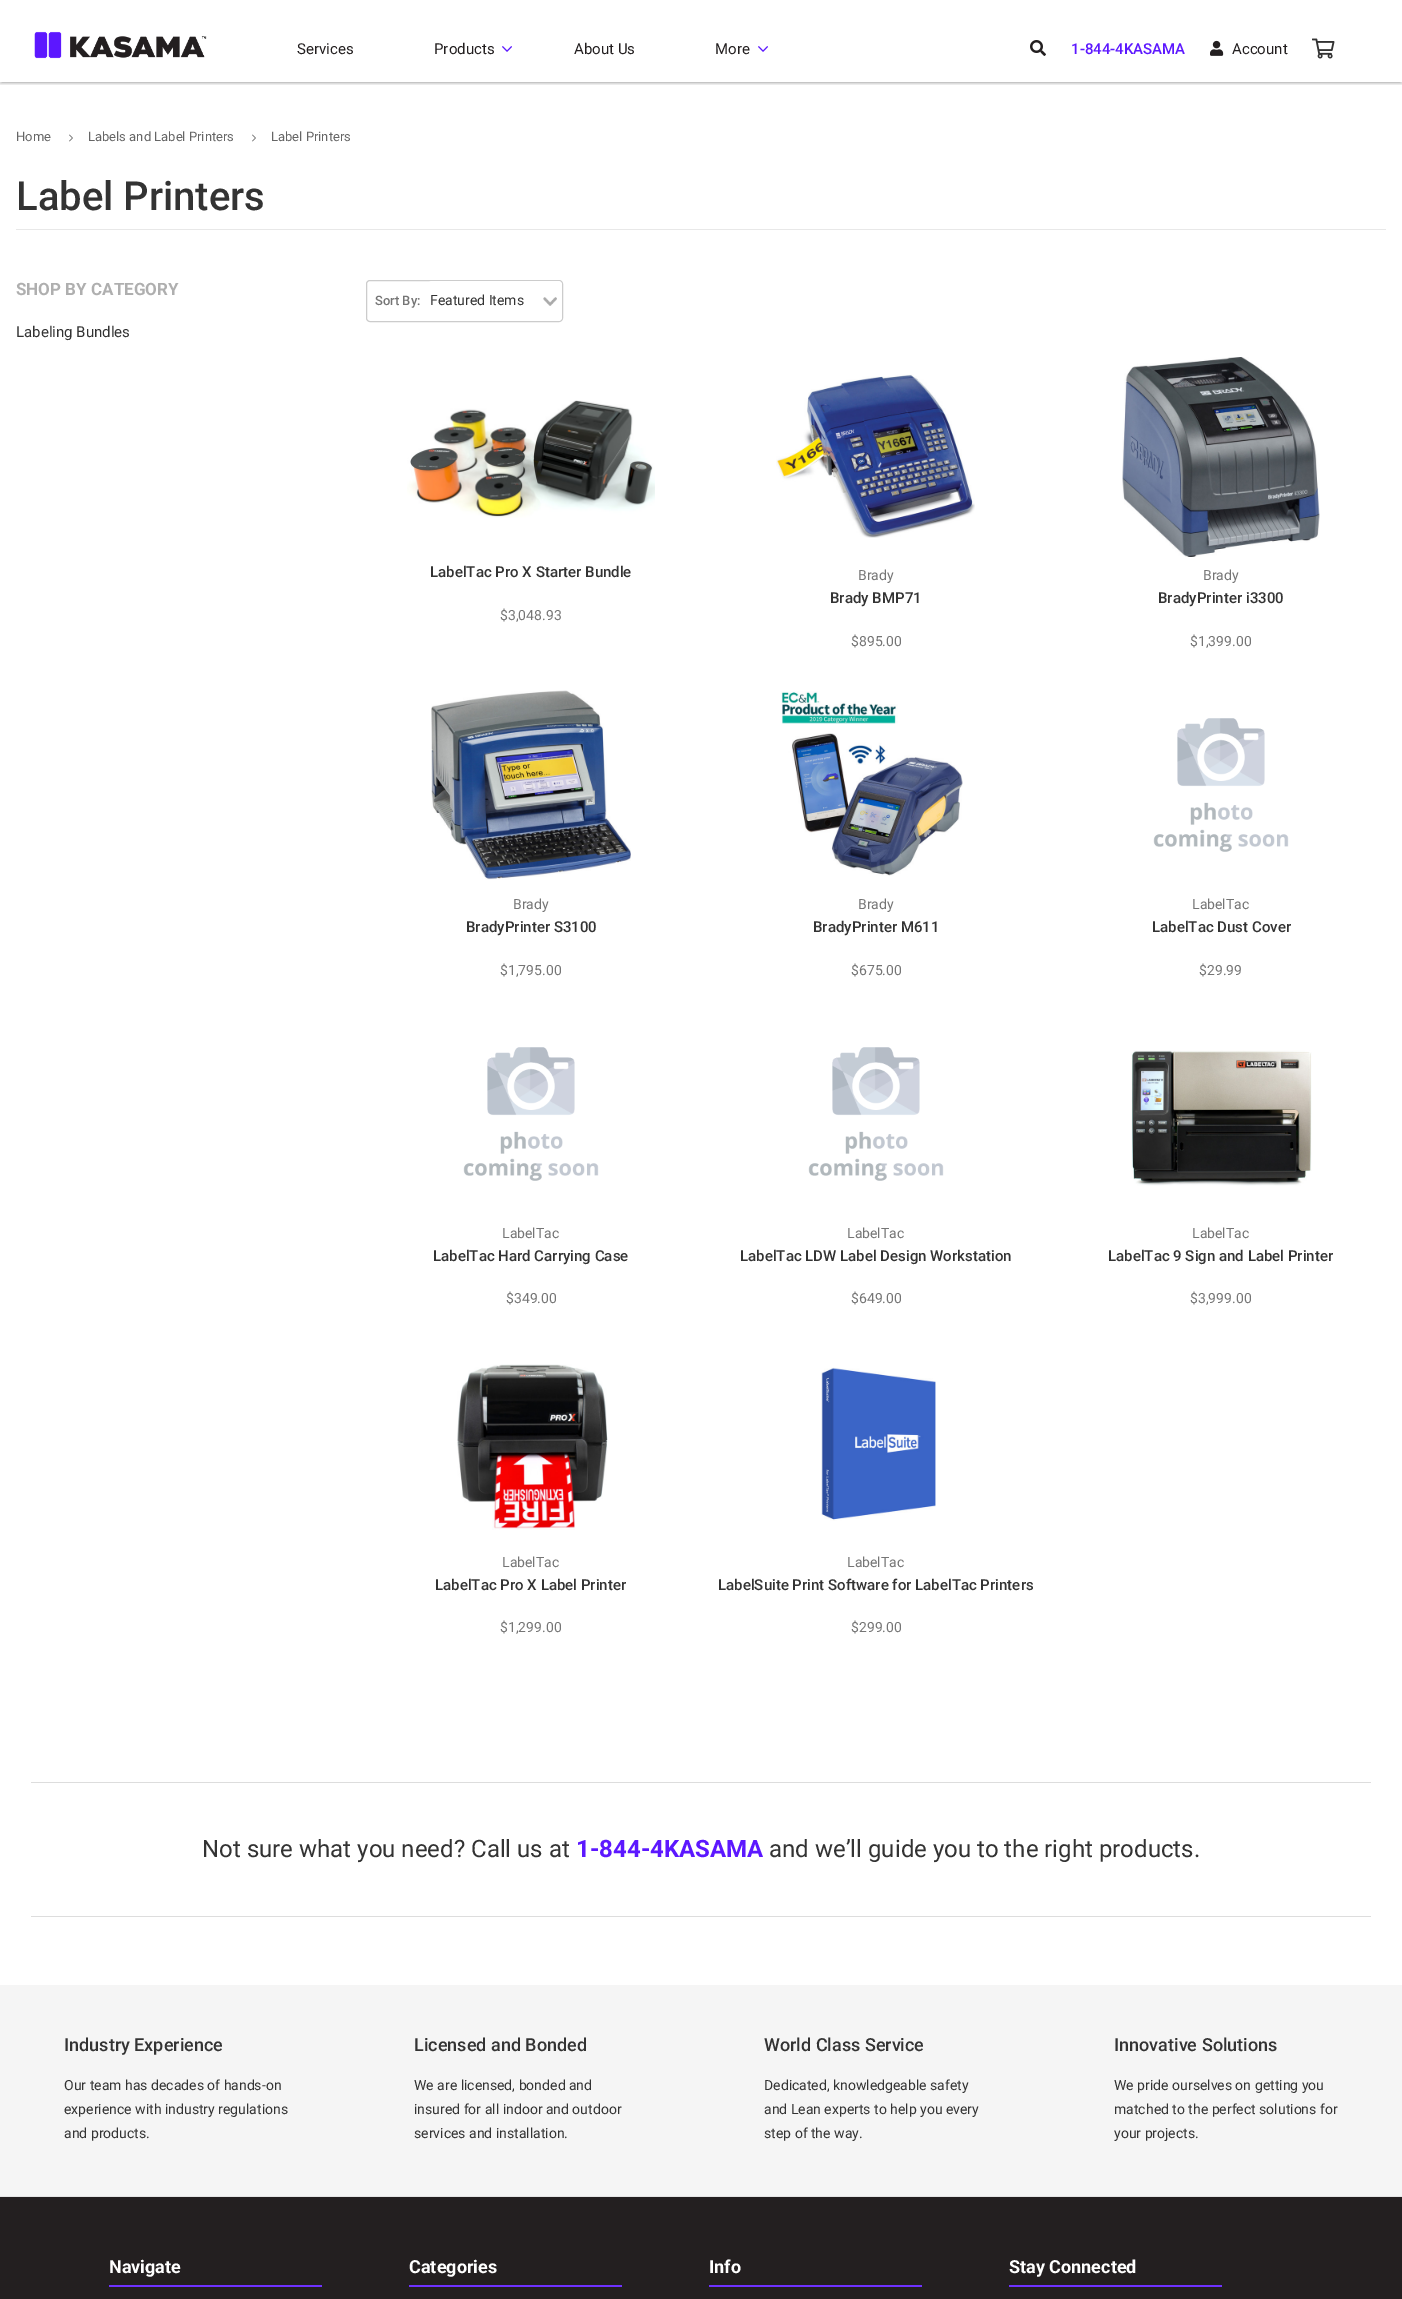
%!PS-Adobe-3.0
%%BoundingBox: 0 0 1402 2299
%%LanguageLevel: 3
%%Pages: 1
%%EndComments
%%BeginProlog
/f { fill } bind def
/S { stroke } bind def
/q { gsave } bind def
/Q { grestore } bind def
/fn { [ exch dup neg 0 0 3 -1 roll 0 0 ] selectfont } def
/tx { moveto show } def
/bx { rectfill } def
/al { dup .setfillconstantalpha .setstrokeconstantalpha } def
/rr { 5 dict begin { /r /h /w /y /x } { exch def } forall
  x r add y moveto x w add y 2 copy h add r arct x w add y h add x 1 index r arct
  x y h add x y r arct x y 2 copy exch w add exch r arct closepath end } def
/sh { 12 dict begin { /a /b /q /h /w /y /x } { exch def } forall gsave /was 0 def
  9 -2 -9 { dup b mul 4 div /e exch def 1 sub .425 mul 2.718 exch exp 1 add a .99 .min exch div /now exch def
    1 1 now sub 1 was sub div sub al /was now def
    w h .min e 2 mul add 0 gt { x e sub y e sub w e 2 mul add h e 2 mul add
      q e add b .6 mul add w h .min 2 div e add .min 0 .max rr fill } if } for grestore end } def
/im { 5 dict begin { /h /w /y /x /name } { exch def } forall
  gsave x y translate w h scale
  w h 8 [w 0 0 h 0 0] name (r) file false 3 colorimage grestore end } def
%%EndProlog
%%BeginSetup
<< /PageSize [1402 2299] /PageUsesTransparency true >> setpagedevice
%%EndSetup
%%Page: 1 1
0 .pushpdf14devicefilter
0 2299 translate 1 -1 scale
4 setmiterlimit
1 setgray
0 0 1402 2299 bx
q
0 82 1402 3 rectclip
0 setgray
0 1 1402 82 0 2.5 0.1 sh
Q
q
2 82 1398 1 rectclip
0 setgray
2 5 1398 78 0 0.5 0.06 sh
Q
q
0 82 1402 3 rectclip
0 setgray
0 2 1402 82 0 1 0.14 sh
Q
(image0.raw) 34 31 173 28 im
/Roboto-Regular 15 fn
0.137 0.122 0.125 setrgbcolor
(Services) 297 54 tx
(Products) 434 54 tx
(image1.raw) 502 46 10 6 im
(About Us) 574 54 tx
(More) 715 54 tx
(image1.raw) 758 46 10 6 im
(image2.raw) 1030 40 16 16 im
/Roboto-Medium 15 fn
0.361 0.09 1 setrgbcolor
(1-844-4KASAMA) 1071 54 tx
(image3.raw) 1210 40 14 16 im
/Roboto-Regular 15 fn
0.137 0.122 0.125 setrgbcolor
(Account) 1232 54 tx
(image4.raw) 1312 38 23 21 im
/Roboto-Regular 13 fn
0.4 setgray
(Home) 16 141 tx
(image5.raw) 69 134 4 8 im
(Labels and Label Printers) 88 141 tx
(image5.raw) 252 134 4 8 im
(Label Printers) 271 141 tx
0.91 setgray
16 229 1370 1 bx
/Roboto-Medium 40 fn
0.2 setgray
(Label Printers) 16 210 tx
/Roboto-Bold 17 fn
0.686 setgray
(SHOP BY CATEGORY) 16 295 tx
/Roboto-Regular 15 fn
0.2 setgray
(Labeling Bundles) 16 337 tx
0.8 setgray
366.5 280.5 196 41 3.5 rr S
/Roboto-Medium 13 fn
0.459 setgray
(Sort By:) 375 305 tx
q
367 281 195 40 3 rr clip newpath
1 setgray
428 281 134 40 4 rr f
Q
(image6.raw) 543 297 14 9 im
/Roboto-Regular 14 fn
0.2 setgray
(Featured Items) 430 305 tx
(image7.raw) 407 400 248 118 im
/Roboto-Medium 15 fn
(LabelTac Pro X Starter Bundle) 430 577 tx
/Roboto-Regular 14 fn
0.459 setgray
($3,048.93) 500 620 tx
(image8.raw) 776 374 199 164 im
(Brady) 858 580 tx
/Roboto-Medium 15 fn
0.2 setgray
(Brady BMP71) 830 603 tx
/Roboto-Regular 14 fn
0.459 setgray
($895.00) 851 646 tx
(image9.raw) 1122 357 198 200 im
(Brady) 1203 580 tx
/Roboto-Medium 15 fn
0.2 setgray
(BradyPrinter i3300) 1158 603 tx
/Roboto-Regular 14 fn
0.459 setgray
($1,399.00) 1190 646 tx
(image10.raw) 431 690 200 190 im
(Brady) 513 909 tx
/Roboto-Medium 15 fn
0.2 setgray
(BradyPrinter S3100) 466 932 tx
/Roboto-Regular 14 fn
0.459 setgray
($1,795.00) 500 975 tx
(image11.raw) 781 691 182 185 im
(Brady) 858 909 tx
/Roboto-Medium 15 fn
0.2 setgray
(BradyPrinter M611) 813 932 tx
/Roboto-Regular 14 fn
0.459 setgray
($675.00) 851 975 tx
(image12.raw) 1153 718 136 134 im
(LabelTac) 1192 909 tx
/Roboto-Medium 15 fn
0.2 setgray
(LabelTac Dust Cover) 1152 932 tx
/Roboto-Regular 14 fn
0.459 setgray
($29.99) 1199 975 tx
(image12.raw) 463 1047 136 134 im
(LabelTac) 502 1238 tx
/Roboto-Medium 15 fn
0.2 setgray
(LabelTac Hard Carrying Case) 433 1261 tx
/Roboto-Regular 14 fn
0.459 setgray
($349.00) 506 1303 tx
(image12.raw) 808 1047 136 134 im
(LabelTac) 847 1238 tx
/Roboto-Medium 15 fn
0.2 setgray
(LabelTac LDW Label Design Workstation) 740 1261 tx
/Roboto-Regular 14 fn
0.459 setgray
($649.00) 851 1303 tx
(image13.raw) 1131 1050 181 136 im
(LabelTac) 1192 1238 tx
/Roboto-Medium 15 fn
0.2 setgray
(LabelTac 9 Sign and Label Printer) 1108 1261 tx
/Roboto-Regular 14 fn
0.459 setgray
($3,999.00) 1190 1303 tx
(image14.raw) 457 1364 151 166 im
(LabelTac) 502 1567 tx
/Roboto-Medium 15 fn
0.2 setgray
(LabelTac Pro X Label Printer) 435 1590 tx
/Roboto-Regular 14 fn
0.459 setgray
($1,299.00) 500 1632 tx
(image15.raw) 821 1367 115 154 im
(LabelTac) 847 1567 tx
/Roboto-Medium 15 fn
0.2 setgray
(LabelSuite Print Software for LabelTac Printers) 718 1590 tx
/Roboto-Regular 14 fn
0.459 setgray
($299.00) 851 1632 tx
0.867 setgray
31 1782 1340 1 bx
/Roboto-Regular 24 fn
0.2 setgray
(Not sure what you need? Call us at) 202 1857 tx
/Roboto-Bold 24 fn
0.361 0.09 1 setrgbcolor
(1-844-4KASAMA) 576 1857 tx
/Roboto-Regular 24 fn
0.2 setgray
(and we’ll guide you to the right products.) 769 1857 tx
0.867 setgray
31 1916 1340 1 bx
0.961 setgray
0 1985 1402 211 bx
/Roboto-Medium 18 fn
0.2 setgray
(Industry Experience) 64 2051 tx
/Roboto-Regular 14 fn
(Our team has decades of hands-on) 64 2090 tx
(experience with industry regulations) 64 2114 tx
(and products.) 64 2138 tx
/Roboto-Medium 18 fn
(Licensed and Bonded) 414 2051 tx
/Roboto-Regular 14 fn
(We are licensed, bonded and) 414 2090 tx
(insured for all indoor and outdoor) 414 2114 tx
(services and installation.) 414 2138 tx
/Roboto-Medium 18 fn
(World Class Service) 764 2051 tx
/Roboto-Regular 14 fn
(Dedicated, knowledgeable safety) 764 2090 tx
(and Lean experts to help you every) 764 2114 tx
(step of the way.) 764 2138 tx
/Roboto-Medium 18 fn
(Innovative Solutions) 1114 2051 tx
/Roboto-Regular 14 fn
(We pride ourselves on getting you) 1114 2090 tx
(matched to the perfect solutions for) 1114 2114 tx
(your projects.) 1114 2138 tx
0.137 0.122 0.125 setrgbcolor
0 2197 1402 102 bx
0.898 setgray
0 2196 1402 1 bx
0.431 0.192 1 setrgbcolor
109 2285 213 2 bx
/Roboto-Bold 18 fn
1 setgray
(Navigate) 109 2273 tx
0.431 0.192 1 setrgbcolor
409 2285 213 2 bx
1 setgray
(Categories) 409 2273 tx
0.431 0.192 1 setrgbcolor
709 2285 213 2 bx
1 setgray
(Info) 709 2273 tx
0.431 0.192 1 setrgbcolor
1009 2285 213 2 bx
1 setgray
(Stay Connected) 1009 2273 tx
.poppdf14devicefilter showpage
%%EOF
